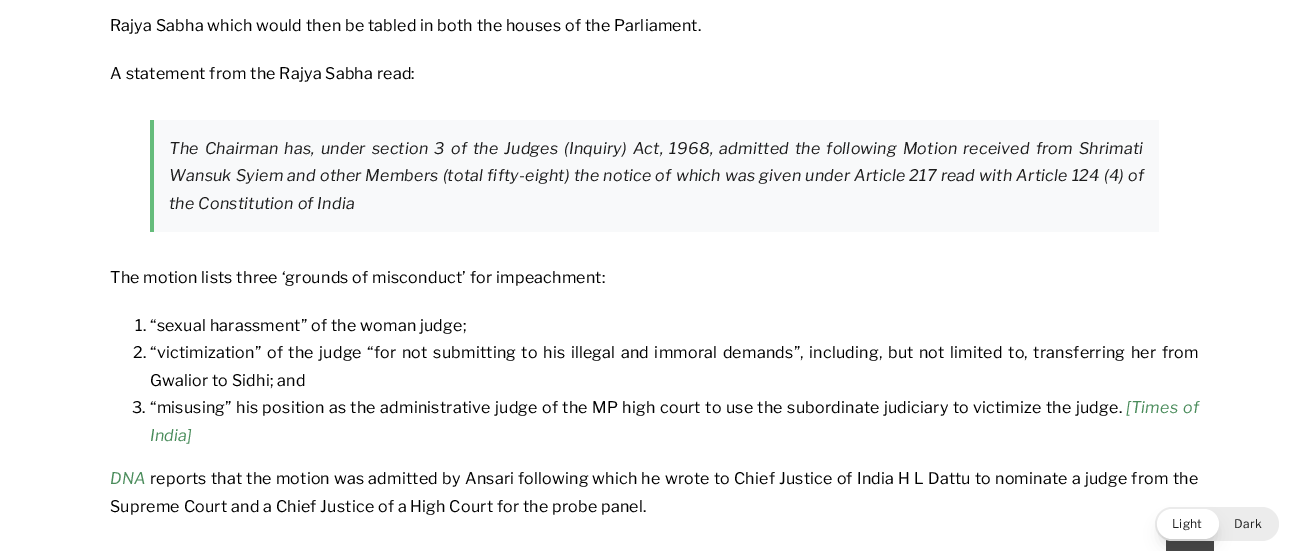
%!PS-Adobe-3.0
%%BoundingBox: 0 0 1289 551
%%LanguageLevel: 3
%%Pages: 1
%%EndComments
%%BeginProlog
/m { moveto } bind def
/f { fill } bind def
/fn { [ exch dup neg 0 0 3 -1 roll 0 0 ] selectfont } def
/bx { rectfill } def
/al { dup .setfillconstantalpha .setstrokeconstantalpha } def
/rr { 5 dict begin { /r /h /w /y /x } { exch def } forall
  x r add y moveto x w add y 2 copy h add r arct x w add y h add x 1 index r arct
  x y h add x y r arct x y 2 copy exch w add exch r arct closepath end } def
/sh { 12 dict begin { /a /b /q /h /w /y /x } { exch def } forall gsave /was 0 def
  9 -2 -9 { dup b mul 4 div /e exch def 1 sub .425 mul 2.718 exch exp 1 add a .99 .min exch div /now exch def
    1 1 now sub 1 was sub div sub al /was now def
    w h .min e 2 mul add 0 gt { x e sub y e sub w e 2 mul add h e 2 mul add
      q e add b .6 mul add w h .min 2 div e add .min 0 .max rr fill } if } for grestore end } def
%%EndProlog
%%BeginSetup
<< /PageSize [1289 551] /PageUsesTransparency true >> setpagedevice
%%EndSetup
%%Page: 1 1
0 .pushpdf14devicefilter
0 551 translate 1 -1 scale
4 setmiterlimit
1 setgray
0 0 1289 551 bx
/LibreFranklin-Regular 16 fn
0 setgray
110 31 m 0.24 0 (Rajya Sabha which would then be tabled in both the houses of the Parliament.) ashow
110 79 m 0.24 0 (A statement from the Rajya Sabha read:) ashow
0.973 0.976 0.98 setrgbcolor
154 120 1005 112 bx
0.396 0.737 0.482 setrgbcolor
150 120 4 112 bx
/LibreFranklin-Italic 16 fn
0.11 setgray
169 154 m 2.25 0 32 0.24 0 (The Chairman has, under section 3 of the Judges \(Inquiry\) Act, 1968, admitted the following Motion received from Shrimati) awidthshow
169 181 m 0.35 0 32 0.24 0 (Wansuk Syiem and other Members \(total fifty-eight\) the notice of which was given under Article 217 read with Article 124 \(4\) of) awidthshow
169 209 m 0.24 0 (the Constitution of India) ashow
/LibreFranklin-Regular 16 fn
0 setgray
110 283 m 0.24 0 (The motion lists three ‘grounds of misconduct’ for impeachment:) ashow
135 331 m 0.24 0 (1. “sexual harassment” of the woman judge;) ashow
133 358 m 0.24 0 (2.) ashow
150 358 m 1.75 0 32 0.24 0 (“victimization” of the judge “for not submitting to his illegal and immoral demands”, including, but not limited to, transferring her from) awidthshow
150 386 m 0.24 0 (Gwalior to Sidhi; and) ashow
132 413 m 0.24 0 (3.) ashow
150 413 m 0.6 0 32 0.24 0 (“misusing” his position as the administrative judge of the MP high court to use the subordinate judiciary to victimize the judge.) awidthshow
/LibreFranklin-Italic 16 fn
0.29 0.549 0.357 setrgbcolor
1126 413 m 1 0 32 0.24 0 ([Times of) awidthshow
150 441 m 0.24 0 (India]) ashow
110 484 m 0.24 0 (DNA) ashow
/LibreFranklin-Regular 16 fn
0 setgray
150 484 m 0.3 0 32 0.24 0 (reports that the motion was admitted by Ansari following which he wrote to Chief Justice of India H L Dattu to nominate a judge from the) awidthshow
110 512 m 0.24 0 (Supreme Court and a Chief Justice of a High Court for the probe panel.) ashow
0.9 al
0.2 setgray
1166 539 48 12 bx
1 al
0.925 setgray
1155 507 124 34 17 rr f
0 setgray
1161 517 54 22 11 3 0.1 sh
1160 522 56 24 12 7.5 0.1 sh
1 setgray
1157 509 62 30 15 rr f
/LibreFranklin-Regular 12 fn
0.11 setgray
1172 528 m 0.24 0 (Light) ashow
1234 528 m 0.24 0 (Dark) ashow
.poppdf14devicefilter showpage
%%EOF
